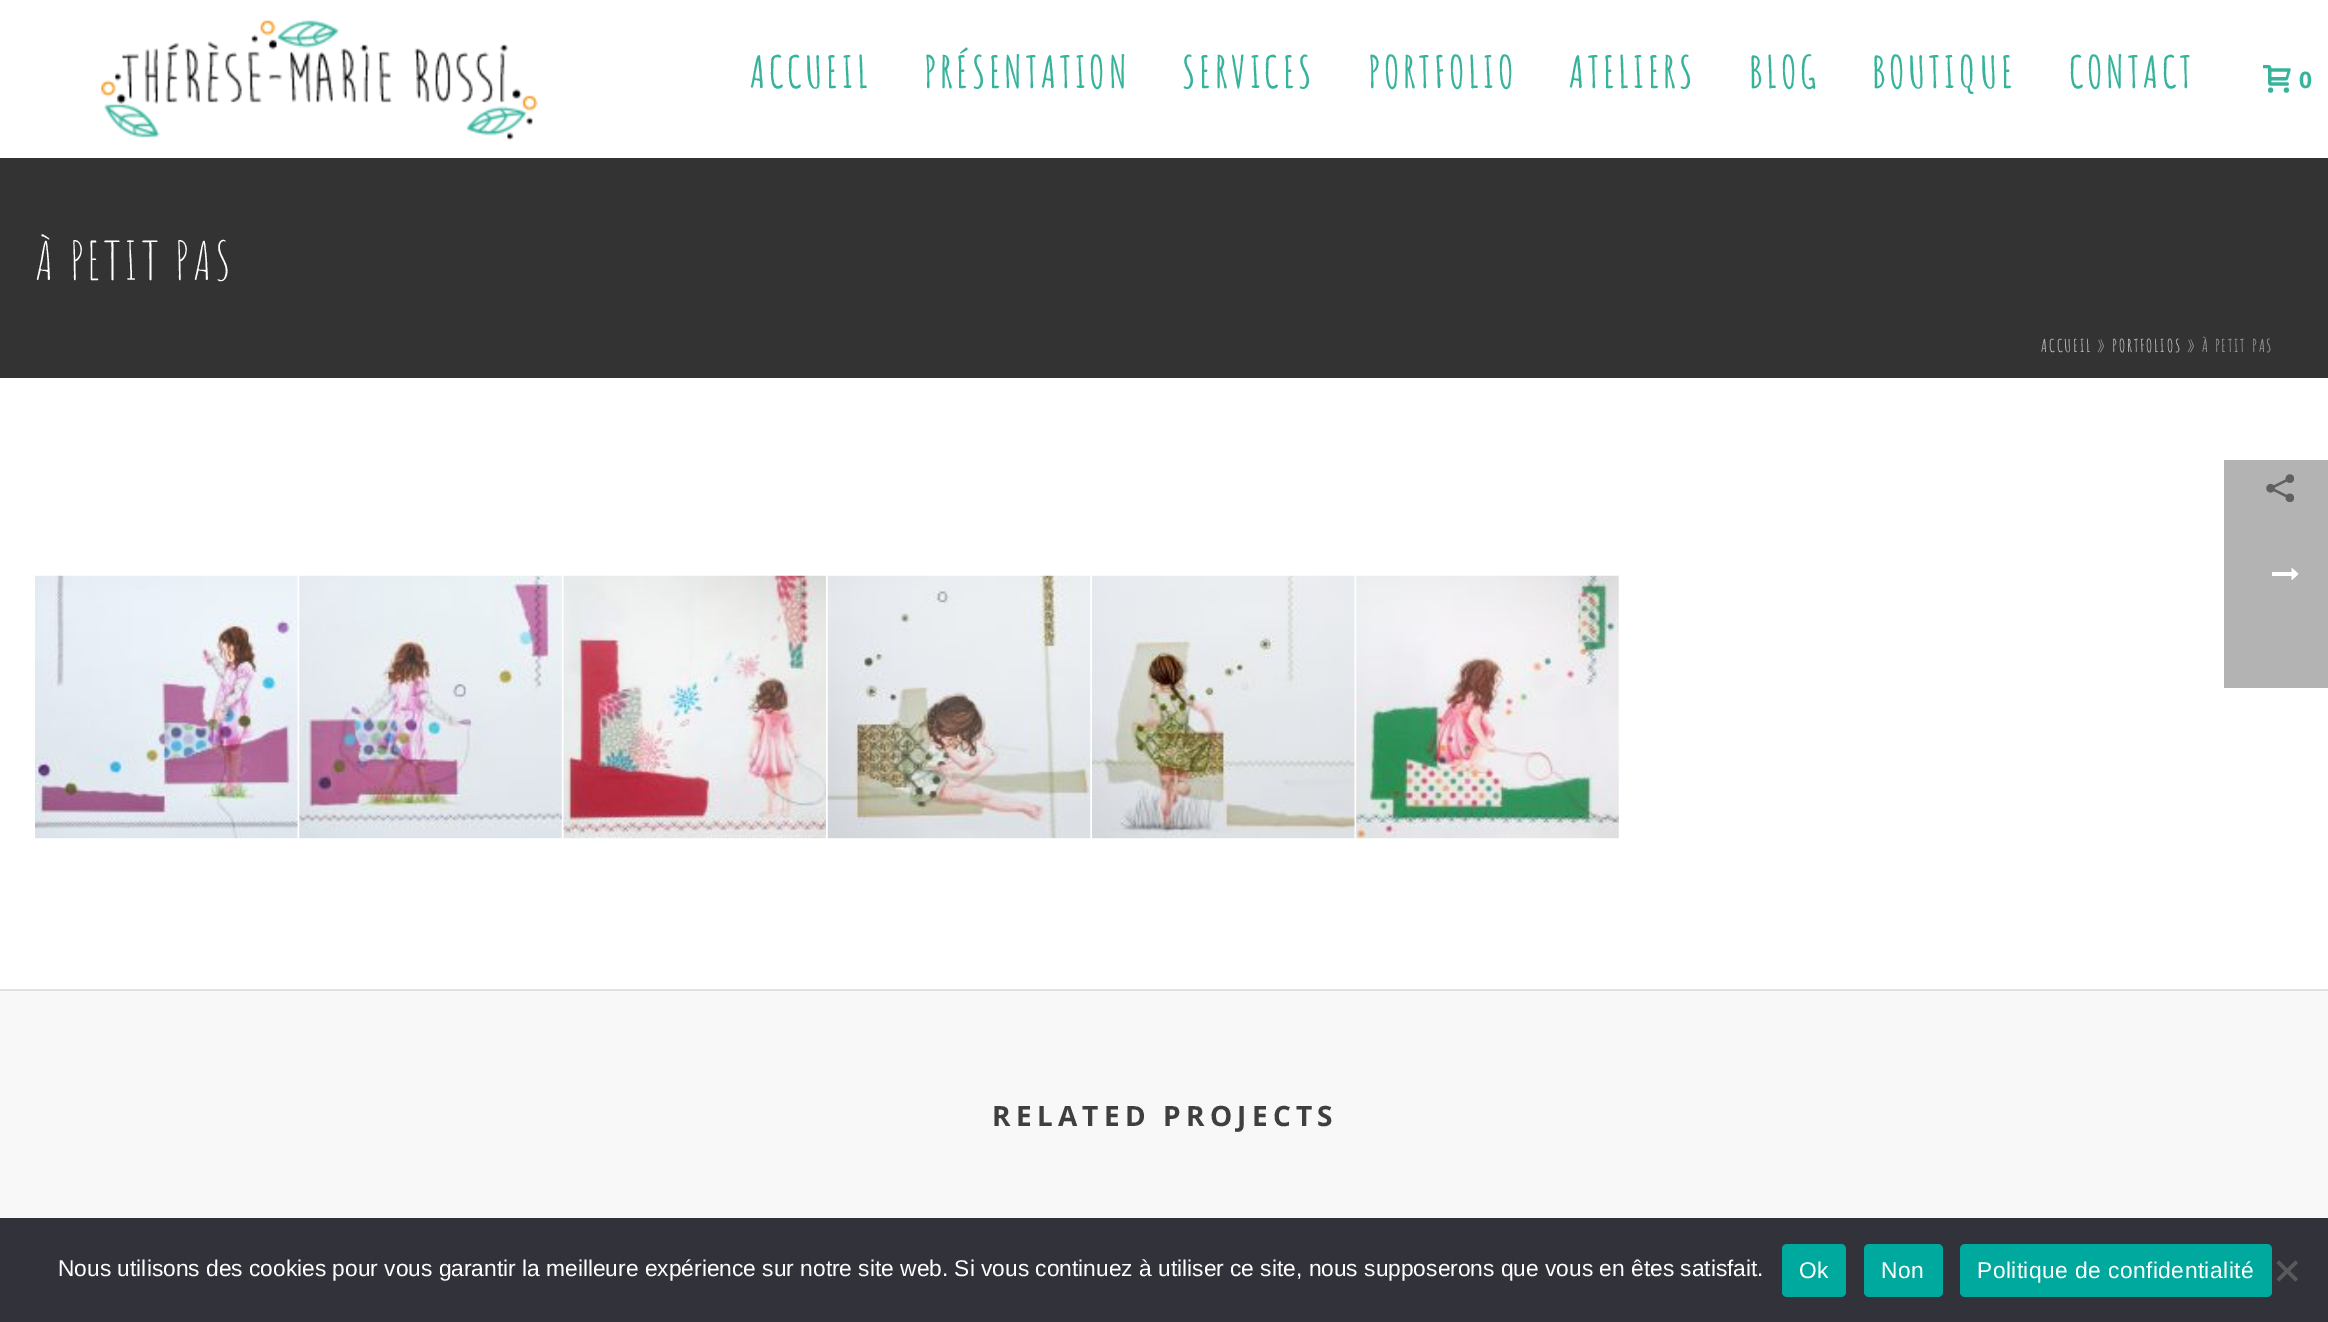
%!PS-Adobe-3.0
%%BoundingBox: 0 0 2328 1322
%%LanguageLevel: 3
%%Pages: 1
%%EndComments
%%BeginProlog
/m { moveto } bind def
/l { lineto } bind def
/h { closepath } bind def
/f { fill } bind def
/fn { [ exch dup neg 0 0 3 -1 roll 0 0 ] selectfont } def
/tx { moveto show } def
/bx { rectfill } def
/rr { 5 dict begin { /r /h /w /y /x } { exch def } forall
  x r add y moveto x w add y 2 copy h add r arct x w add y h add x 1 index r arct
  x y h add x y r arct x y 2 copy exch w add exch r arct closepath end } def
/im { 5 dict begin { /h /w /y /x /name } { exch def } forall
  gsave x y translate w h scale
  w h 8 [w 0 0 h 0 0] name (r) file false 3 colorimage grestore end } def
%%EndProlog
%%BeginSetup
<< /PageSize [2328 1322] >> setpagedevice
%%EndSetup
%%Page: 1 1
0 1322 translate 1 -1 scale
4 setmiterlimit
1 setgray
0 0 2328 1322 bx
0.702 setgray
2224 460 104 228 bx
0.2 setgray
0 158 2328 220 bx
(image0.raw) 101 20 437 121 im
/AmaticSC-Bold 43.75 fn
0.216 0.702 0.612 setrgbcolor
750 88 m 3.5 0 (ACCUEIL) ashow
924 88 m 3.5 0 (PRÉSENTATION) ashow
1182 88 m 3.5 0 (SERVICES) ashow
1368 88 m 3.5 0 (PORTFOLIO) ashow
1569 88 m 3.5 0 (ATELIERS) ashow
1749 88 m 3.5 0 (BLOG) ashow
1872 88 m 3.5 0 (BOUTIQUE) ashow
2069 88 m 3.5 0 (CONTACT) ashow
(image1.raw) 2263 65 28 28 im
/OpenSans-Bold 22.75 fn
(0) 2299 88 tx
/AmaticSC-Regular 52.5 fn
1 setgray
35 280 m 3.5 0 (À PETIT PAS) ashow
/AmaticSC-Bold 17.5 fn
0.686 setgray
2041 352 m 1.75 0 (ACCUEIL) ashow
0.569 setgray
2097 352 m 1.75 0 (») ashow
0.686 setgray
2112 352 m 1.75 0 (PORTFOLIOS) ashow
0.569 setgray
2187 352 m 1.75 0 (» À PETIT PAS) ashow
(image2.raw) 2266 474 28 28 im
(image3.raw) 35 575 263 264 im
(image4.raw) 299 575 263 264 im
(image5.raw) 563 575 263 264 im
(image6.raw) 827 575 264 264 im
(image7.raw) 1092 575 263 264 im
(image8.raw) 1356 575 263 264 im
0.973 setgray
0 991 2328 227 bx
0.875 0.886 0.898 setrgbcolor
0 989 2328 2 bx
/OpenSans-Bold 28 fn
0.247 setgray
992 1126 m 5.25 0 (RELATED PROJECTS) ashow
(image9.raw) 2272 568 27 12 im
0.196 0.196 0.227 setrgbcolor
0 1218 2328 104 bx
/LiberationSans-Regular 22.75 fn
1 setgray
(Nous utilisons des cookies pour vous garantir la meilleure expérience sur notre site web. Si vous continuez à utiliser ce site, nous supposerons que vous en êtes satisfait.) 58 1276 tx
0 0.663 0.616 setrgbcolor
1782 1244 64 53 5 rr f
1 setgray
1799 1278 m 0.45 0 (Ok) ashow
0 0.663 0.616 setrgbcolor
1864 1244 79 53 5 rr f
1 setgray
1881 1278 m 0.45 0 (Non) ashow
0 0.663 0.616 setrgbcolor
1960 1244 312 53 5 rr f
1 setgray
1977 1278 m 0.45 0 (Politique de confidentialité) ashow
0.349 0.349 0.365 setrgbcolor
2295.5 1260.5 m 2298 1263 l 2279 1281.5 l 2276.5 1279 l h f
2276.5 1263 m 2279 1260.5 l 2298 1279 l 2295.5 1281.5 l h f
showpage
%%EOF
